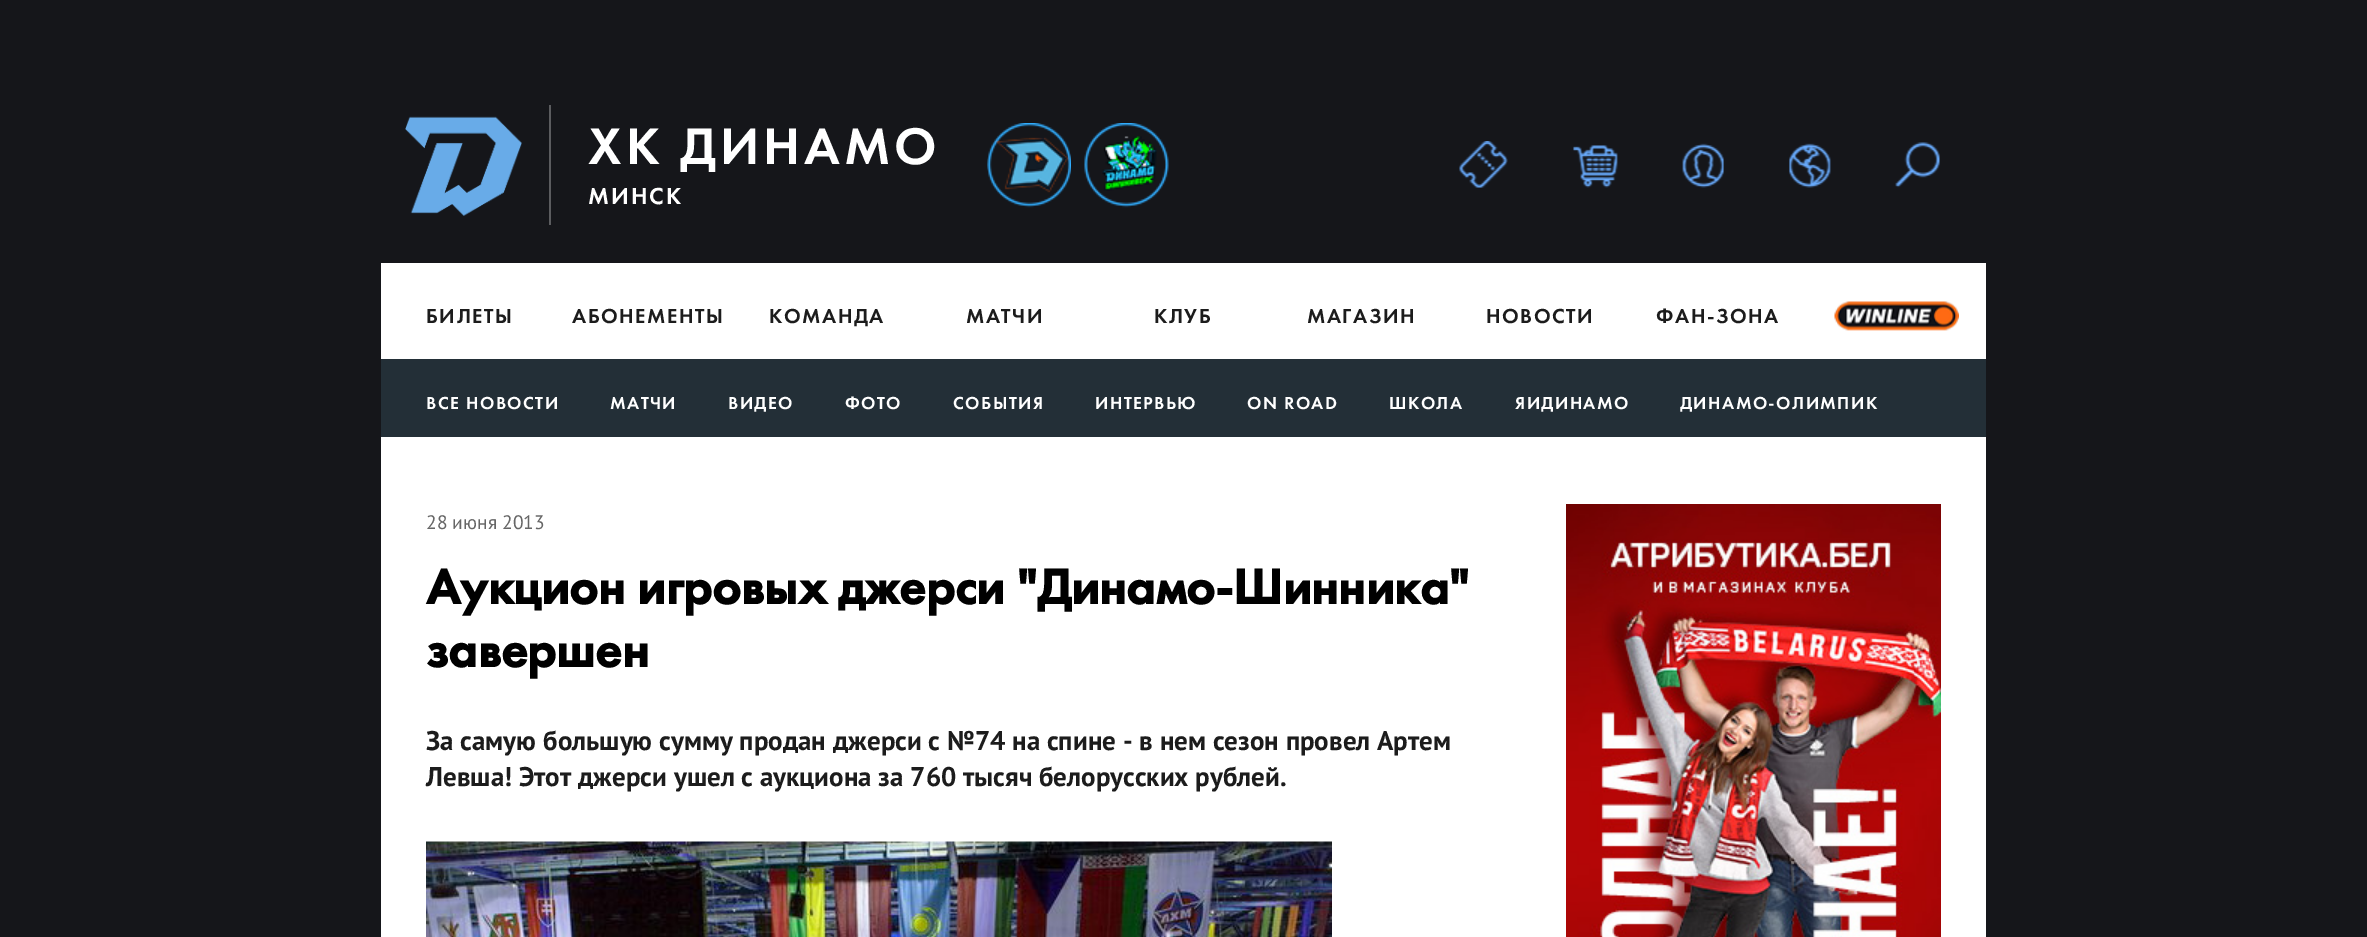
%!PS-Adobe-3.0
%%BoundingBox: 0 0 2367 937
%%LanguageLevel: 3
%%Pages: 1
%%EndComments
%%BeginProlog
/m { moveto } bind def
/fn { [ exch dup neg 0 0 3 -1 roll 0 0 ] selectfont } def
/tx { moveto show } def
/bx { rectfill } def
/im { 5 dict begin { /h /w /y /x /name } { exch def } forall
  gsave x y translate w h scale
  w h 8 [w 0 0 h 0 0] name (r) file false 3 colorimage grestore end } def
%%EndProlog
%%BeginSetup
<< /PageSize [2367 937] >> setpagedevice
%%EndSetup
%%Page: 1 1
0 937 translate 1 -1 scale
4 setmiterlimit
0.082 0.086 0.102 setrgbcolor
0 0 2367 937 bx
(image0.raw) 405 116 117 100 im
0.357 0.361 0.373 setrgbcolor
549 105 2 120 bx
/FuturaPT-Medium 53.25 fn
1 setgray
588 164 m 4 0 (ХК ДИНАМО) ashow
/FuturaPT-Medium 24 fn
588 204 m 2 0 (МИНСК) ashow
(image1.raw) 987 123 84 85 im
(image2.raw) 1084 123 85 85 im
(image3.raw) 1459 141 49 47 im
(image4.raw) 1573 145 45 43 im
(image5.raw) 1682 143 42 45 im
(image6.raw) 1789 143 42 45 im
(image7.raw) 1895 142 45 46 im
381 263 1605 96 bx
/FuturaPT-Medium 21 fn
0.11 setgray
426 323 m 1.5 0 (БИЛЕТЫ) ashow
572 323 m 1.5 0 (АБОНЕМЕНТЫ) ashow
769 323 m 1.5 0 (КОМАНДА) ashow
966 323 m 1.5 0 (МАТЧИ) ashow
1154 323 m 1.5 0 (КЛУБ) ashow
1307 323 m 1.5 0 (МАГАЗИН) ashow
1486 323 m 1.5 0 (НОВОСТИ) ashow
1656 323 m 1.5 0 (ФАН-ЗОНА) ashow
(image8.raw) 1834 301 125 30 im
0.137 0.184 0.216 setrgbcolor
381 359 1605 78 bx
/FuturaPT-Medium 18 fn
1 setgray
426 409 m 1.4 0 (ВСЕ НОВОСТИ) ashow
610 409 m 1.4 0 (МАТЧИ) ashow
728 409 m 1.4 0 (ВИДЕО) ashow
845 409 m 1.4 0 (ФОТО) ashow
953 409 m 1.4 0 (СОБЫТИЯ) ashow
1095 409 m 1.4 0 (ИНТЕРВЬЮ) ashow
1247 409 m 1.4 0 (ON ROAD) ashow
1389 409 m 1.4 0 (ШКОЛА) ashow
1515 409 m 1.4 0 (ЯИДИНАМО) ashow
1680 409 m 1.4 0 (ДИНАМО-ОЛИМПИК) ashow
381 437 1605 500 bx
/PTSans-Regular 19.5 fn
0.4 setgray
(28 июня 2013) 426 529 tx
/FuturaPT-Bold 51 fn
0 setgray
(Аукцион игровых джерси "Динамо-Шинника") 426 604 tx
(завершен) 426 667 tx
/PTSans-Bold 27 fn
0.11 setgray
(За самую большую сумму продан джерси с №74 на спине - в нем сезон провел Артем) 426 750 tx
(Левша! Этот джерси ушел с аукциона за 760 тысяч белорусских рублей.) 426 786 tx
(image9.raw) 426 841 906 96 im
(image10.raw) 1566 504 375 433 im
showpage
%%EOF
